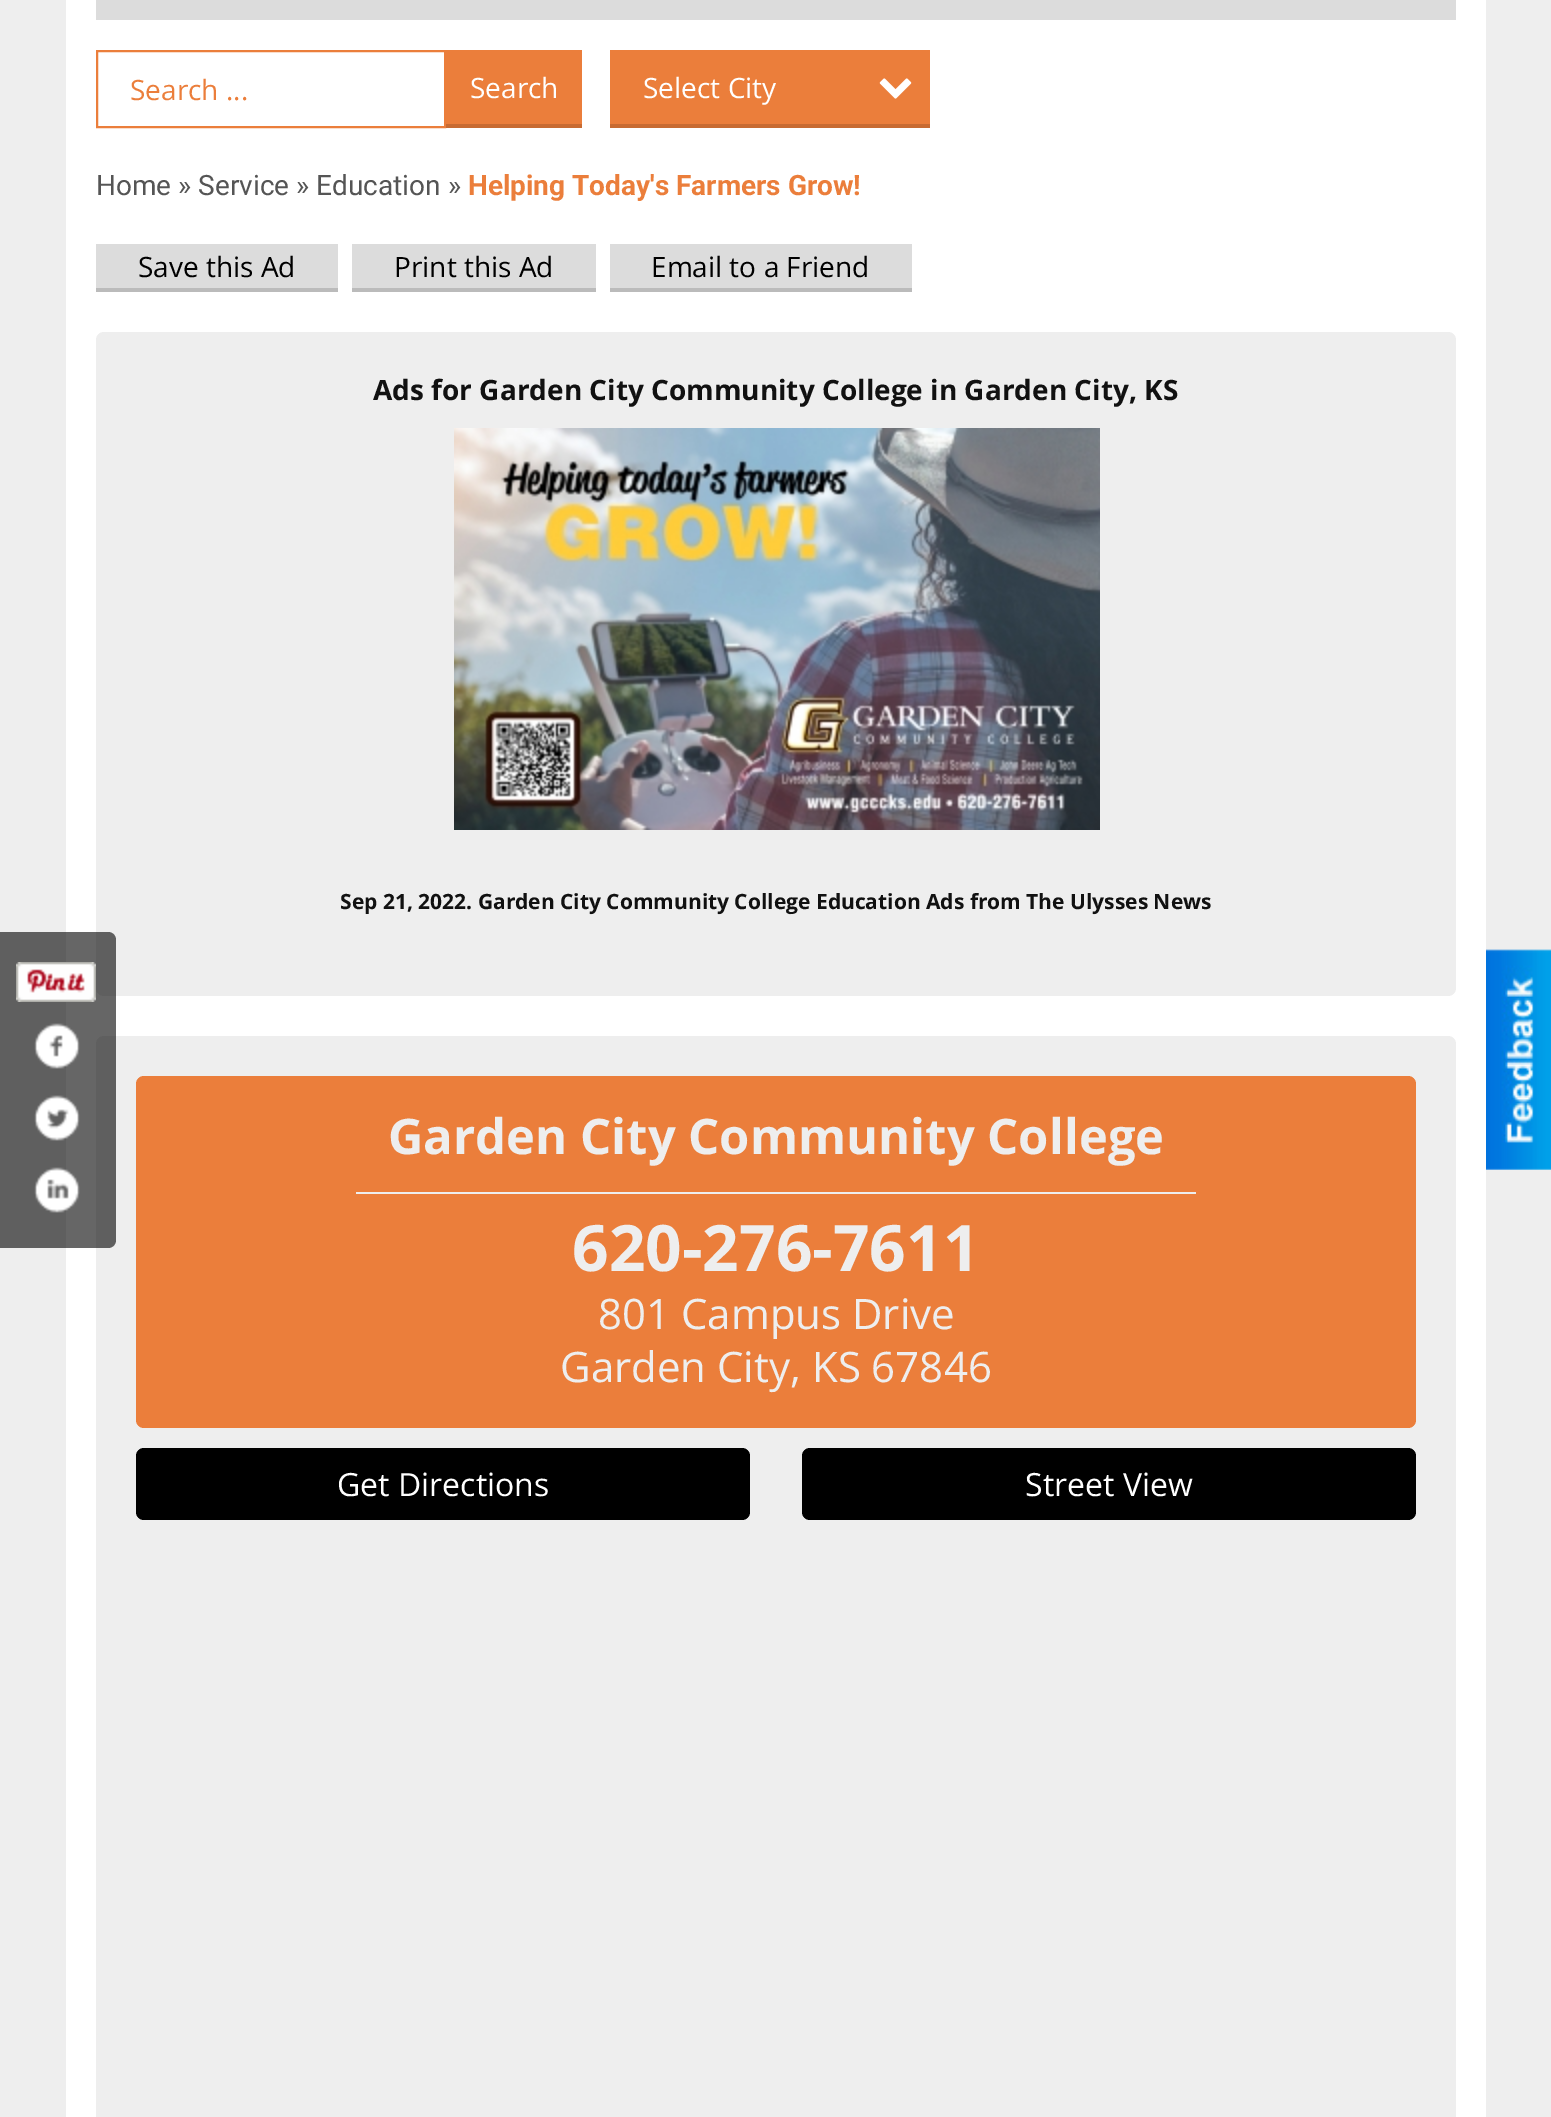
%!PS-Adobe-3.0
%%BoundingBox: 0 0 1551 2117
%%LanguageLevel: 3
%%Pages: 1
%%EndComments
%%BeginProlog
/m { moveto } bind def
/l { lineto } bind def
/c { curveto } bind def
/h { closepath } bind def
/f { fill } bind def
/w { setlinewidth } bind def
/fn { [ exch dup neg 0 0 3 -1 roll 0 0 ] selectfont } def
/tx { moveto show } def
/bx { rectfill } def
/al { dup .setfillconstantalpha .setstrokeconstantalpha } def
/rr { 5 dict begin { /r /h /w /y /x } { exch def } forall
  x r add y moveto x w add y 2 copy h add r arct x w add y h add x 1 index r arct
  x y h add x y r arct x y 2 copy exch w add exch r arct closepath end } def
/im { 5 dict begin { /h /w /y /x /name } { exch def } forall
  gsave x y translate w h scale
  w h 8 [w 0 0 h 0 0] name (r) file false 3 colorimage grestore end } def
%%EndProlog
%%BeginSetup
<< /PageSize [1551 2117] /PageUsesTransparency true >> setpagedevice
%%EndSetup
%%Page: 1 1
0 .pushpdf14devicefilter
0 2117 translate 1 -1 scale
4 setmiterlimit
0.933 setgray
0 0 1551 2117 bx
1 setgray
66 0 1420 2117 bx
0.933 setgray
96 332 1360 664 8 rr f
96 1036 1360 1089 8 rr f
0.6 al
0 setgray
0 932 m 108 932 l 112.5 932 116 935.5 116 940 c 116 1240 l 116 1244.5 112.5 1248 108 1248 c 0 1248 l h f
1 al
(image0.raw) 16 962 80 40 im
(image1.raw) 34 1023 46 46 im
(image2.raw) 34 1095 46 46 im
(image3.raw) 34 1167 46 46 im
0.863 setgray
96 0 1360 20 bx
0.922 0.494 0.231 setrgbcolor
2 w
97 51 348 76 rectstroke
/OpenSans-Regular 28 fn
(Search ...) 130 100 tx
446 50 136 74 bx
0.784 0.42 0.196 setrgbcolor
446 124 136 4 bx
1 setgray
(Search) 470 98 tx
0.922 0.494 0.231 setrgbcolor
610 50 320 74 bx
0.784 0.42 0.196 setrgbcolor
610 124 320 4 bx
1 setgray
(Select City) 643 98 tx
(image4.raw) 879 78 33 21 im
/Roboto-Regular 28 fn
0.333 setgray
(Home » Service » Education ») 96 195 tx
/Roboto-Bold 28 fn
0.922 0.494 0.231 setrgbcolor
(Helping Today's Farmers Grow!) 468 195 tx
0.863 setgray
96 244 242 44 bx
0.733 setgray
96 288 242 4 bx
/OpenSans-Regular 28 fn
0 setgray
(Save this Ad) 138 277 tx
0.863 setgray
352 244 244 44 bx
0.733 setgray
352 288 244 4 bx
0 setgray
(Print this Ad) 394 277 tx
0.863 setgray
610 244 302 44 bx
0.733 setgray
610 288 302 4 bx
0 setgray
(Email to a Friend) 651 277 tx
/OpenSans-Bold 28 fn
0.067 setgray
(Ads for Garden City Community College in Garden City, KS) 373 400 tx
(image5.raw) 454 428 646 402 im
/OpenSans-Bold 21 fn
(Sep 21, 2022. Garden City Community College Education Ads from The Ulysses News) 340 909 tx
0.922 0.494 0.231 setrgbcolor
136 1076 1280 352 8 rr f
/OpenSans-Bold 49 fn
0.933 setgray
(Garden City Community College) 388 1154 tx
356 1192 840 2 bx
/OpenSans-Bold 64 fn
(620-276-7611) 572 1271 tx
/OpenSans-Regular 42 fn
(801 Campus Drive) 598 1329 tx
(Garden City, KS 67846) 560 1382 tx
0 setgray
136 1448 614 72 8 rr f
/OpenSans-Regular 32 fn
1 setgray
(Get Directions) 337 1496 tx
0 setgray
802 1448 614 72 8 rr f
1 setgray
(Street View) 1025 1496 tx
(image6.raw) 1486 949 65 221 im
.poppdf14devicefilter showpage
%%EOF
